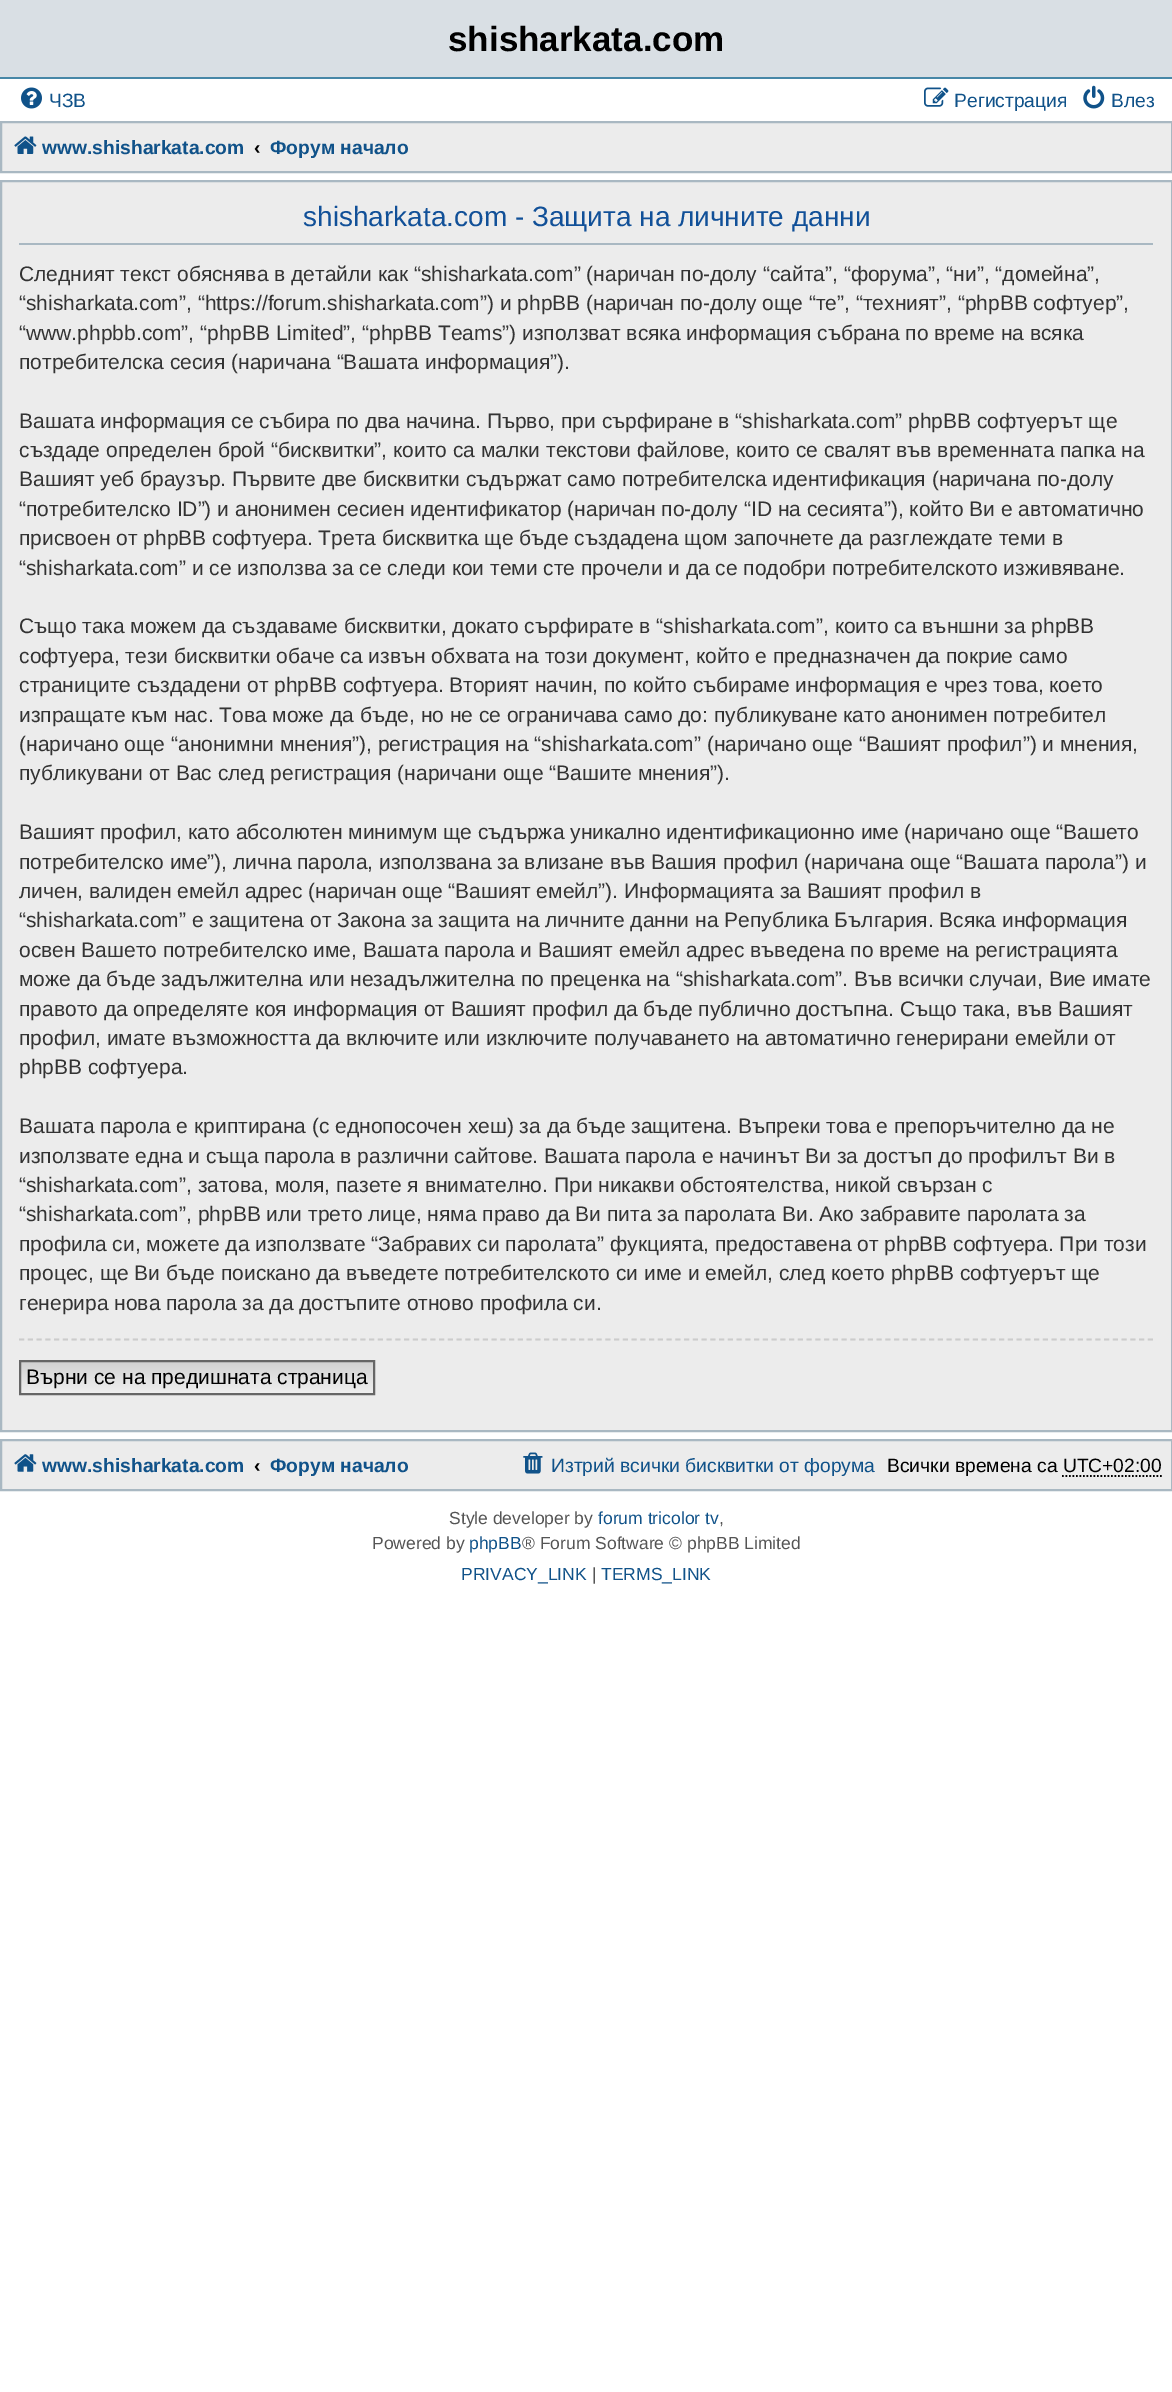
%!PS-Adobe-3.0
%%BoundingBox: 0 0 1172 2392
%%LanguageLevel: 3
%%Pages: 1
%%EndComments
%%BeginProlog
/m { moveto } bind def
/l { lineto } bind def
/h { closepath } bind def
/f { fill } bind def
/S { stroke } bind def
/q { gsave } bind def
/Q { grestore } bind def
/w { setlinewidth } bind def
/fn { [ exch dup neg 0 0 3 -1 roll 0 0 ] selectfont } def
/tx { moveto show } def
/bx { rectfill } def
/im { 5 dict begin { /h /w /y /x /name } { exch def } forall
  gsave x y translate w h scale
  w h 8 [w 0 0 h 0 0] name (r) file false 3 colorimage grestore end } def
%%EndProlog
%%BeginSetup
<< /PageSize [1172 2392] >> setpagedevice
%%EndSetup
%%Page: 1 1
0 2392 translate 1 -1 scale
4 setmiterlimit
1 setgray
0 0 1172 2392 bx
0.851 0.875 0.894 setrgbcolor
0 0 1172 77 bx
0.278 0.529 0.655 setrgbcolor
0 77 1172 2 bx
/LiberationSans-Bold 35 fn
0 setgray
(shisharkata.com) 448 51 tx
(image0.raw) 21 87 21 22 im
/LiberationSans-Regular 19.25 fn
0.063 0.322 0.537 setrgbcolor
(ЧЗВ) 49 107 tx
(image1.raw) 924 87 25 20 im
(Регистрация) 954 107 tx
(image2.raw) 1083 85 22 24 im
(Влез) 1111 107 tx
0.925 setgray
1 122 m 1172 122 l 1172 172 l 1 172 l h q f Q
0.663 0.722 0.761 setrgbcolor
2 w
S
(image3.raw) 14 136 23 18 im
/LiberationSans-Bold 19.25 fn
0.063 0.322 0.537 setrgbcolor
(www.shisharkata.com) 42 154 tx
0 setgray
(‹) 254 154 tx
0.063 0.322 0.537 setrgbcolor
(Форум начало) 270 154 tx
0.925 setgray
1 181 m 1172 181 l 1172 1431 l 1 1431 l h q f Q
0.663 0.722 0.761 setrgbcolor
S
19 243 1134 2 bx
/LiberationSans-Regular 28 fn
0.067 0.314 0.596 setrgbcolor
(shisharkata.com - Защита на личните данни) 303 226 tx
/LiberationSans-Regular 21 fn
0.2 setgray
(Следният текст обяснява в детайли как “shisharkata.com” \(наричан по-долу “сайта”, “форума”, “ни”, “домейна”,) 19 281 tx
(“shisharkata.com”, “https://forum.shisharkata.com”\) и phpBB \(наричан по-долу още “те”, “техният”, “phpBB софтуер”,) 19 310 tx
(“www.phpbb.com”, “phpBB Limited”, “phpBB Teams”\) използват всяка информация събрана по време на всяка) 19 340 tx
(потребителска сесия \(наричана “Вашата информация”\).) 19 369 tx
(Вашата информация се събира по два начина. Първо, при сърфиране в “shisharkata.com” phpBB софтуерът ще) 19 428 tx
(създаде определен брой “бисквитки”, които са малки текстови файлове, които се свалят във временната папка на) 19 457 tx
(Вашият уеб браузър. Първите две бисквитки съдържат само потребителска идентификация \(наричана по-долу) 19 486 tx
(“потребителско ID”\) и анонимен сесиен идентификатор \(наричан по-долу “ID на сесията”\), който Ви е автоматично) 19 516 tx
(присвоен от phpBB софтуера. Трета бисквитка ще бъде създадена щом започнете да разглеждате теми в) 19 545 tx
(“shisharkata.com” и се използва за се следи кои теми сте прочели и да се подобри потребителското изживяване.) 19 575 tx
(Също така можем да създаваме бисквитки, докато сърфирате в “shisharkata.com”, които са външни за phpBB) 19 633 tx
(софтуера, тези бисквитки обаче са извън обхвата на този документ, който е предназначен да покрие само) 19 663 tx
(страниците създадени от phpBB софтуера. Вторият начин, по който събираме информация е чрез това, което) 19 692 tx
(изпращате към нас. Това може да бъде, но не се ограничава само до: публикуване като анонимен потребител) 19 722 tx
(\(наричано още “анонимни мнения”\), регистрация на “shisharkata.com” \(наричано още “Вашият профил”\) и мнения,) 19 751 tx
(публикувани от Вас след регистрация \(наричани още “Вашите мнения”\).) 19 780 tx
(Вашият профил, като абсолютен минимум ще съдържа уникално идентификационно име \(наричано още “Вашето) 19 839 tx
(потребителско име”\), лична парола, използвана за влизане във Вашия профил \(наричана още “Вашата парола”\) и) 19 869 tx
(личен, валиден емейл адрес \(наричан още “Вашият емейл”\). Информацията за Вашият профил в) 19 898 tx
(“shisharkata.com” е защитена от Закона за защита на личните данни на Република България. Всяка информация) 19 927 tx
(освен Вашето потребителско име, Вашата парола и Вашият емейл адрес въведена по време на регистрацията) 19 957 tx
(може да бъде задължителна или незадължителна по преценка на “shisharkata.com”. Във всички случаи, Вие имате) 19 986 tx
(правото да определяте коя информация от Вашият профил да бъде публично достъпна. Също така, във Вашият) 19 1016 tx
(профил, имате възможността да включите или изключите получаването на автоматично генерирани емейли от) 19 1045 tx
(phpBB софтуера.) 19 1074 tx
(Вашата парола е криптирана \(с еднопосочен хеш\) за да бъде защитена. Въпреки това е препоръчително да не) 19 1133 tx
(използвате една и съща парола в различни сайтове. Вашата парола е начинът Ви за достъп до профилът Ви в) 19 1163 tx
(“shisharkata.com”, затова, моля, пазете я внимателно. При никакви обстоятелства, никой свързан с) 19 1192 tx
(“shisharkata.com”, phpBB или трето лице, няма право да Ви пита за паролата Ви. Ако забравите паролата за) 19 1221 tx
(профила си, можете да използвате “Забравих си паролата” фукцията, предоставена от phpBB софтуера. При този) 19 1251 tx
(процес, ще Ви бъде поискано да въведете потребителското си име и емейл, след което phpBB софтуерът ще) 19 1280 tx
(генерира нова парола за да достъпите отново профила си.) 19 1310 tx
0.8 setgray
1.8 w
[5.25 3.5] 0 setdash
19 1339.5 m 1153 1339.5 l S
q 21 1362 m 373 1362 l 373 1393 l 21 1393 l h clip newpath
<< /ShadingType 2 /ColorSpace /DeviceRGB /Coords [197 1362 197 1393] /Extend [true true] /Function << /FunctionType 2 /Domain [0 1] /C0 [0.824 0.824 0.824] /C1 [0.937 0.937 0.937] /N 1 >> >> shfill Q
0.4 setgray
2 w
[] 0 setdash
20 1361 354 33 rectstroke
0 setgray
(Върни се на предишната страница) 26 1384 tx
0.925 setgray
1 1440 m 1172 1440 l 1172 1490 l 1 1490 l h q f Q
0.663 0.722 0.761 setrgbcolor
S
(image4.raw) 14 1454 23 18 im
/LiberationSans-Bold 19.25 fn
0.063 0.322 0.537 setrgbcolor
(www.shisharkata.com) 42 1472 tx
0 setgray
(‹) 254 1472 tx
0.063 0.322 0.537 setrgbcolor
(Форум начало) 270 1472 tx
(image5.raw) 523 1452 20 22 im
/LiberationSans-Regular 19.25 fn
(Изтрий всички бисквитки от форума) 551 1472 tx
0 setgray
(Всички времена са UTC+02:00) 887 1472 tx
1.8 w
[1.75 1.75] 0 setdash
1062 1476 m 1162 1476 l S
/LiberationSans-Regular 17.5 fn
0.333 setgray
(Style developer by) 449 1524 tx
0.063 0.322 0.537 setrgbcolor
(forum tricolor tv) 598 1524 tx
0.333 setgray
(,) 719 1524 tx
(Powered by) 372 1549 tx
0.063 0.322 0.537 setrgbcolor
(phpBB) 469 1549 tx
0.333 setgray
(® Forum Software © phpBB Limited) 522 1549 tx
0.063 0.322 0.537 setrgbcolor
(PRIVACY_LINK) 461 1580 tx
0.333 setgray
(|) 592 1580 tx
0.063 0.322 0.537 setrgbcolor
(TERMS_LINK) 601 1580 tx
showpage
%%EOF
